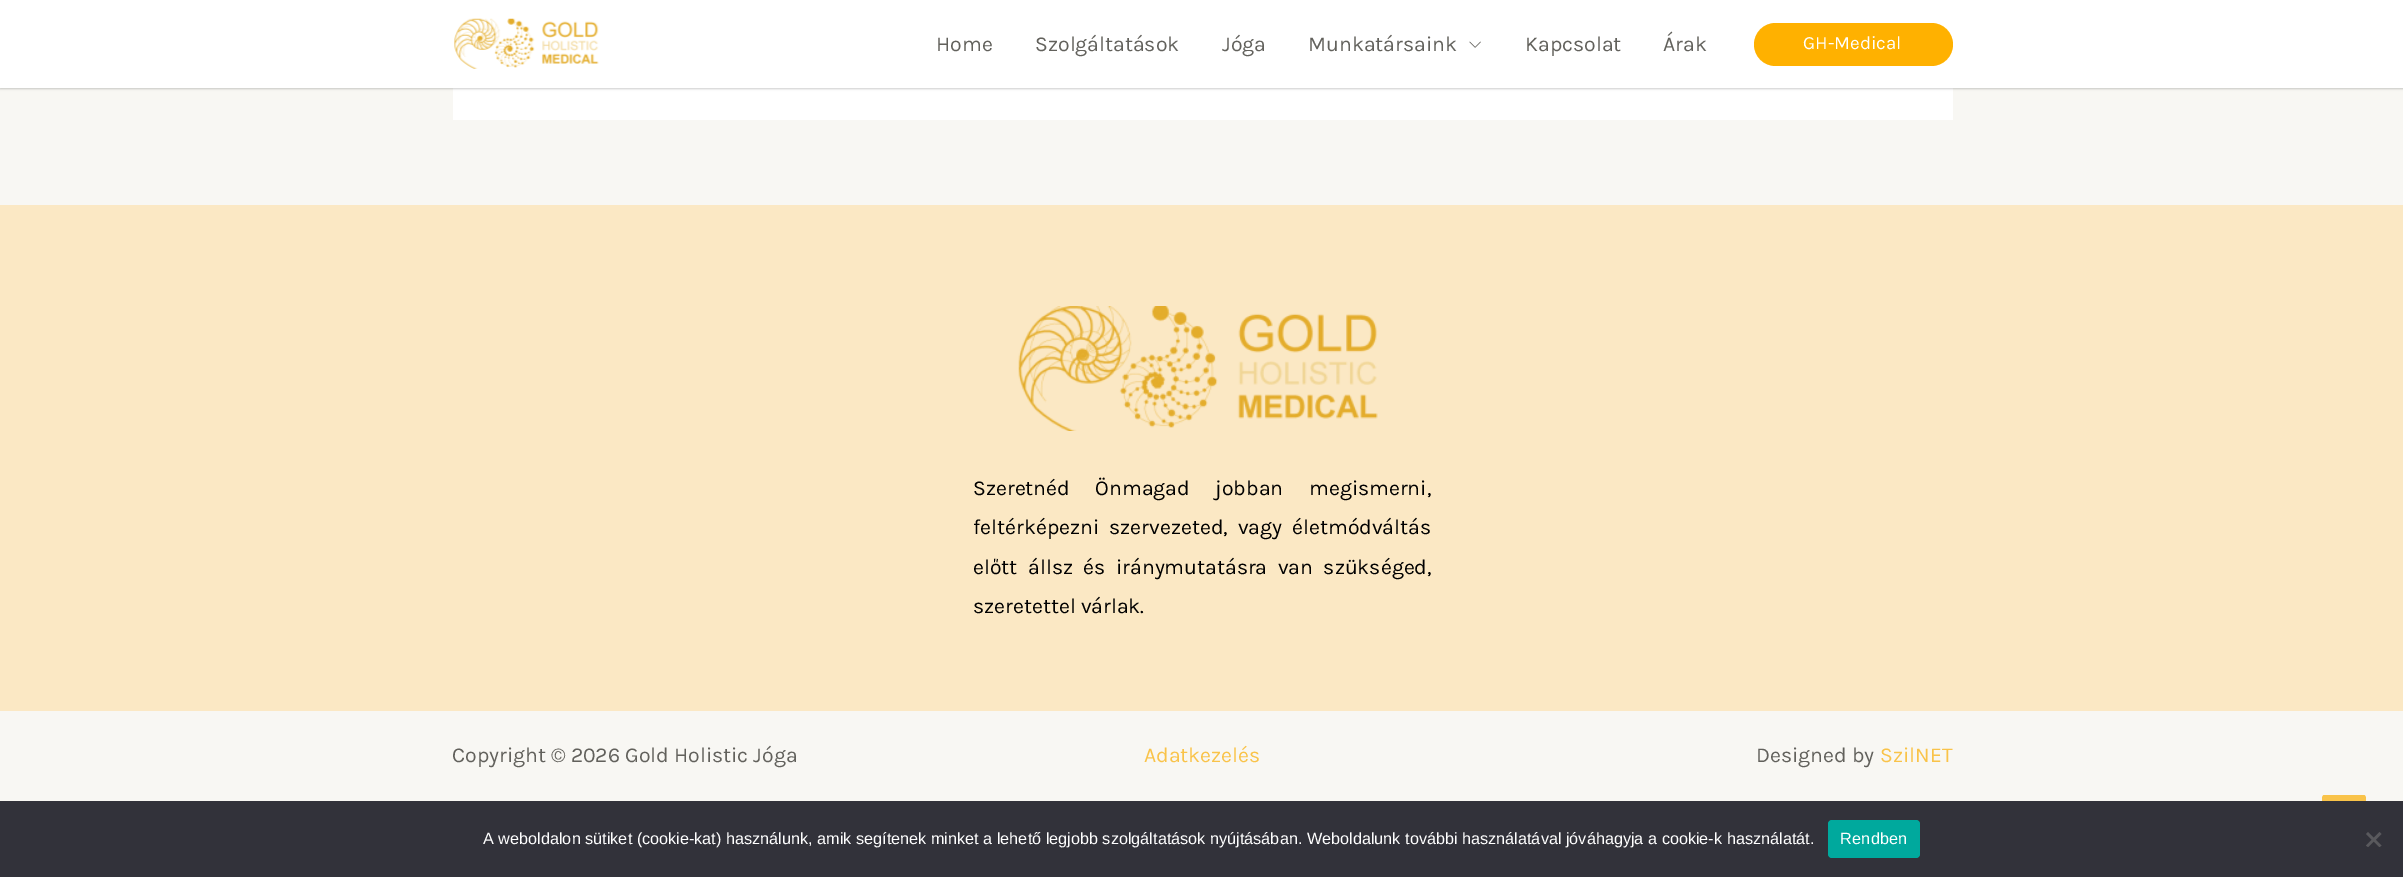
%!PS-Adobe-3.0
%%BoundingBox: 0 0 2403 877
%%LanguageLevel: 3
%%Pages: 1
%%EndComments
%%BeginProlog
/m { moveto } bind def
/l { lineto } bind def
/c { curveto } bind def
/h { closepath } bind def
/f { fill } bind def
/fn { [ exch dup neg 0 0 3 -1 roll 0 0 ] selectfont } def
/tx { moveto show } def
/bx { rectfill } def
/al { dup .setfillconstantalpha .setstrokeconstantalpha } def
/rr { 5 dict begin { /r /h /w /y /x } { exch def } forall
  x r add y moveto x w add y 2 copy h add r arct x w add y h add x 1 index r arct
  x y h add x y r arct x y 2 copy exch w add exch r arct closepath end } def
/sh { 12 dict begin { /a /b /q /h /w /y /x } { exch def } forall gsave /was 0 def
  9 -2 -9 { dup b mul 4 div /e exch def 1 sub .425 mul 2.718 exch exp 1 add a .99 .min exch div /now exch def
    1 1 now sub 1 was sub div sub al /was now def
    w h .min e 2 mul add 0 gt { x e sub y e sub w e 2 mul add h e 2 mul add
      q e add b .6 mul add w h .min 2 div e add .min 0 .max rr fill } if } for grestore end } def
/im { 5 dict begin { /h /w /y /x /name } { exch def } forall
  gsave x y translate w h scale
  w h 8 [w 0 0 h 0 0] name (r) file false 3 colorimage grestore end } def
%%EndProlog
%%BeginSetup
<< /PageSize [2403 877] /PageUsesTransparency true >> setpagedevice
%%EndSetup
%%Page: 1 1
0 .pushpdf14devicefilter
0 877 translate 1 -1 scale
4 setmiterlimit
0.973 0.969 0.953 setrgbcolor
0 0 2403 877 bx
1 setgray
453 88 1500 32 bx
0 setgray
0 1 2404 88 0 1 0.2 sh
1 setgray
0 0 2403 88 bx
(image0.raw) 454 18 145 51 im
/Karla-Regular 21.25 fn
0.384 0.38 0.361 setrgbcolor
(Home) 936 51 tx
(Szolgáltatások) 1035 51 tx
(Jóga) 1222 51 tx
(Munkatársaink) 1308 51 tx
(image1.raw) 1469 41 12 7 im
(Kapcsolat) 1525 51 tx
(Árak) 1663 51 tx
1 0.694 0 setrgbcolor
1754 23 199 43 21.5 rr f
/Karla-Regular 18.75 fn
1 setgray
(GH-Medical) 1803 49 tx
0.984 0.91 0.769 setrgbcolor
0 205 2403 506 bx
(image2.raw) 1018 306 360 125 im
/Karla-Regular 21.25 fn
0 setgray
973 495 m 20.5 0 32 (Szeretnéd Önmagad jobban megismerni,) widthshow
973 534 m 5 0 32 (feltérképezni szervezeted, vagy életmódváltás) widthshow
973 574 m 5.5 0 32 (előtt állsz és iránymutatásra van szükséged,) widthshow
(szeretettel várlak.) 973 613 tx
0.384 0.38 0.361 setrgbcolor
(Copyright © 2026 Gold Holistic Jóga) 452 762 tx
0.976 0.765 0.286 setrgbcolor
(Adatkezelés) 1144 762 tx
0.384 0.38 0.361 setrgbcolor
(Designed by) 1756 762 tx
0.976 0.765 0.286 setrgbcolor
(SzilNET) 1880 762 tx
2364 840 m 2324 840 l 2323 840 2322 839 2322 838 c 2322 798 l 2322 797 2323 795 2324 795 c 2364 795 l 2365 795 2366 797 2366 798 c 2366 838 l 2366 839 2365 840 2364 840 c h f
0.196 0.196 0.227 setrgbcolor
0 801 2403 76 bx
/LiberationSans-Regular 16.25 fn
1 setgray
(A weboldalon sütiket \(cookie-kat\) használunk, amik segítenek minket a lehető legjobb szolgáltatások nyújtásában. Weboldalunk további használatával jóváhagyja a cookie-k használatát.) 483 844 tx
0 0.663 0.616 setrgbcolor
1828 820 92 38 4 rr f
1 setgray
1840 844 m 0.25 0 (Rendben) ashow
0.349 0.349 0.365 setrgbcolor
2379.5 832 m 2381.5 834 l 2368 847 l 2366 845.5 l h f
2366 834 m 2368 832 l 2381.5 845.5 l 2379.5 847 l h f
.poppdf14devicefilter showpage
%%EOF
